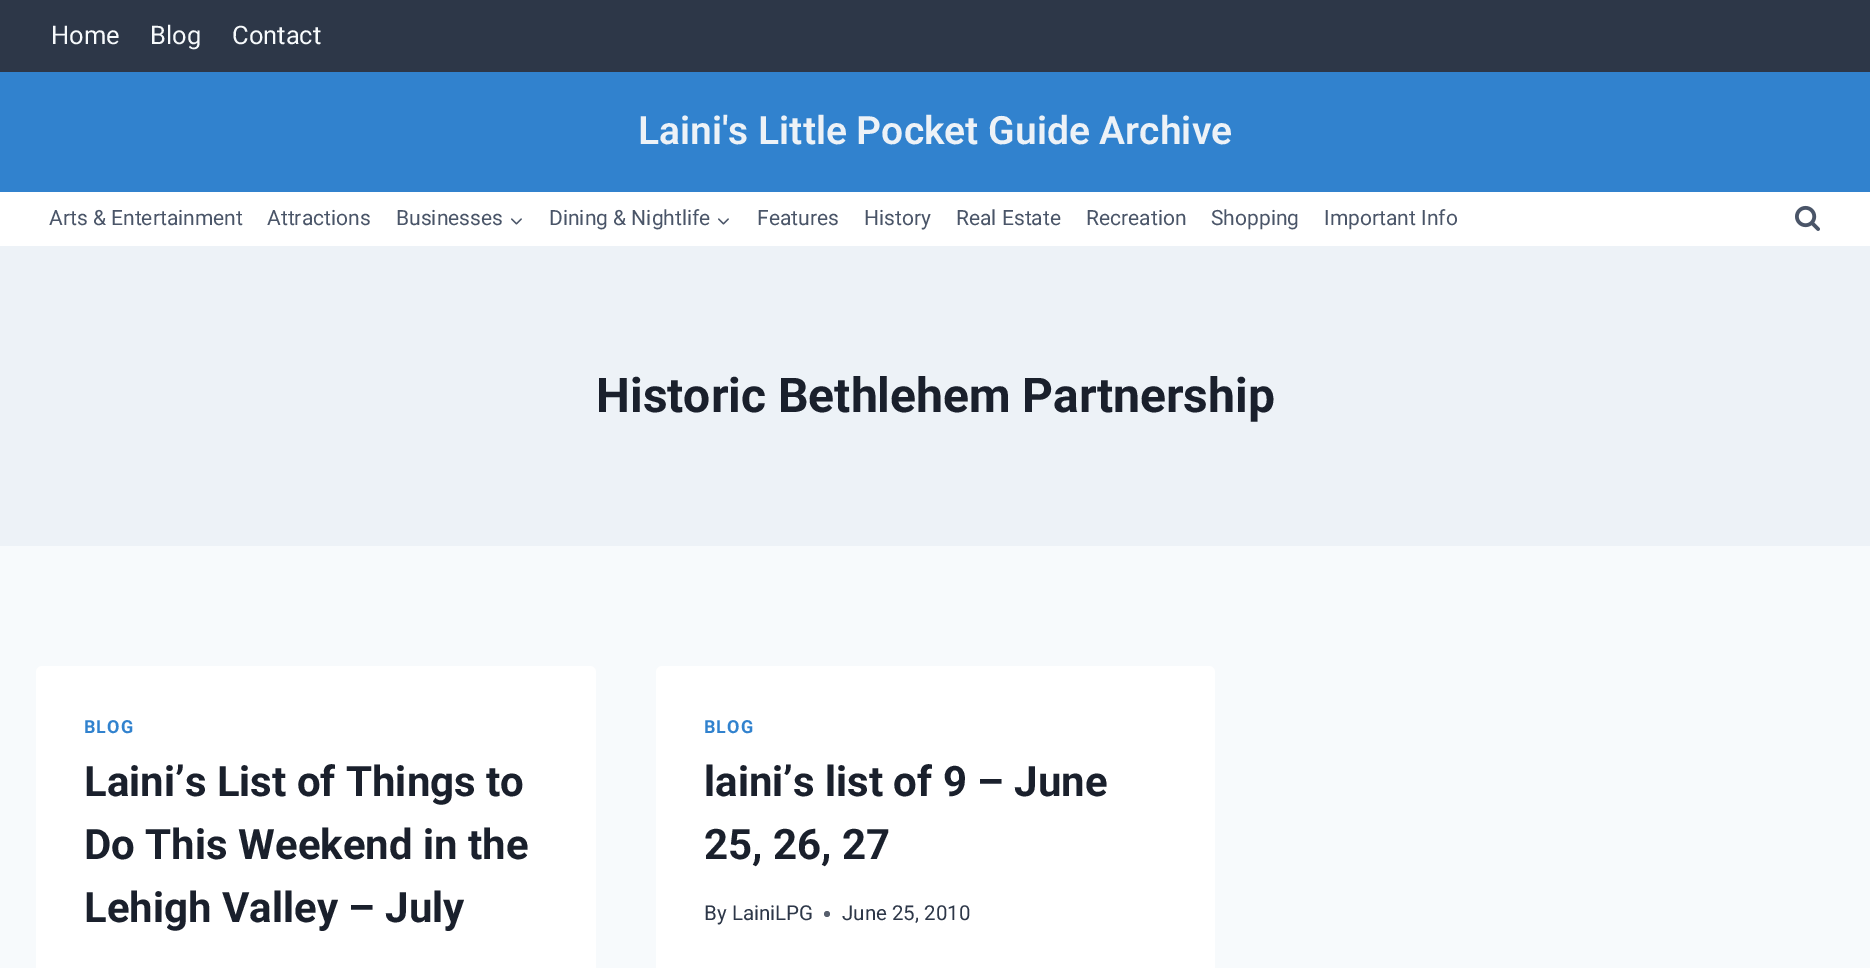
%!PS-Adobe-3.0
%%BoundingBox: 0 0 1870 968
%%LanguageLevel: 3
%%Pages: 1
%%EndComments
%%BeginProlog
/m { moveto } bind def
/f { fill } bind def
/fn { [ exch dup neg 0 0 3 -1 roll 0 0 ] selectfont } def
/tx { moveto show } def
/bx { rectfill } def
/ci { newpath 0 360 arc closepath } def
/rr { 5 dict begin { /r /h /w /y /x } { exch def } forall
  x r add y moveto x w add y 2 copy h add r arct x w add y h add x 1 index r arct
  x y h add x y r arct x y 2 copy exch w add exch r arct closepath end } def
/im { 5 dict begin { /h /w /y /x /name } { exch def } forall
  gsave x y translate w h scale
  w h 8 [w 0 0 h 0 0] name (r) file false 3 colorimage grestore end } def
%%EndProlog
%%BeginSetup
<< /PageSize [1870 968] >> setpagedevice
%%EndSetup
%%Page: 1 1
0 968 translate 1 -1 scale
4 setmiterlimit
0.969 0.98 0.988 setrgbcolor
0 0 1870 968 bx
1 setgray
0 192 1870 54 bx
0.176 0.216 0.282 setrgbcolor
0 0 1870 72 bx
/Roboto-Regular 25.5 fn
0.969 0.98 0.988 setrgbcolor
(Home) 51 44 tx
(Blog) 150 44 tx
(Contact) 232 44 tx
0.192 0.51 0.808 setrgbcolor
0 72 1870 120 bx
/Roboto-SemiBold 39 fn
0.929 0.949 0.969 setrgbcolor
(Laini's Little Pocket Guide Archive) 638 144 tx
/Roboto-Regular 21 fn
0.29 0.333 0.408 setrgbcolor
(Arts & Entertainment) 49 225 tx
(Attractions) 267 225 tx
(Businesses) 396 225 tx
(image0.raw) 511 218 11 7 im
(Dining & Nightlife) 549 225 tx
(image0.raw) 718 218 11 7 im
(Features) 757 225 tx
(History) 864 225 tx
(Real Estate) 956 225 tx
(Recreation) 1086 225 tx
(Shopping) 1211 225 tx
(Important Info) 1324 225 tx
(image1.raw) 1795 205 25 26 im
0.929 0.949 0.969 setrgbcolor
0 246 1870 300 bx
/Roboto-Bold 48 fn
0.102 0.125 0.173 setrgbcolor
(Historic Bethlehem Partnership) 596 412 tx
1 setgray
36 666 560 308 6 rr f
/Roboto-Bold 18 fn
0.192 0.51 0.808 setrgbcolor
84 733 m 1 0 (BLOG) ashow
/Roboto-Bold 42 fn
0.102 0.125 0.173 setrgbcolor
(Laini’s List of Things to) 84 796 tx
(Do This Weekend in the) 84 859 tx
(Lehigh Valley – July) 84 922 tx
1 setgray
656 666 559 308 6 rr f
/Roboto-Bold 18 fn
0.192 0.51 0.808 setrgbcolor
704 733 m 1 0 (BLOG) ashow
/Roboto-Bold 42 fn
0.102 0.125 0.173 setrgbcolor
(laini’s list of 9 – June) 704 796 tx
(25, 26, 27) 704 859 tx
/Roboto-Regular 20.5 fn
0.176 0.216 0.282 setrgbcolor
(By LainiLPG) 704 920 tx
0.341 0.373 0.427 setrgbcolor
827 914 3 ci f
0.176 0.216 0.282 setrgbcolor
(June 25, 2010) 842 920 tx
showpage
%%EOF
